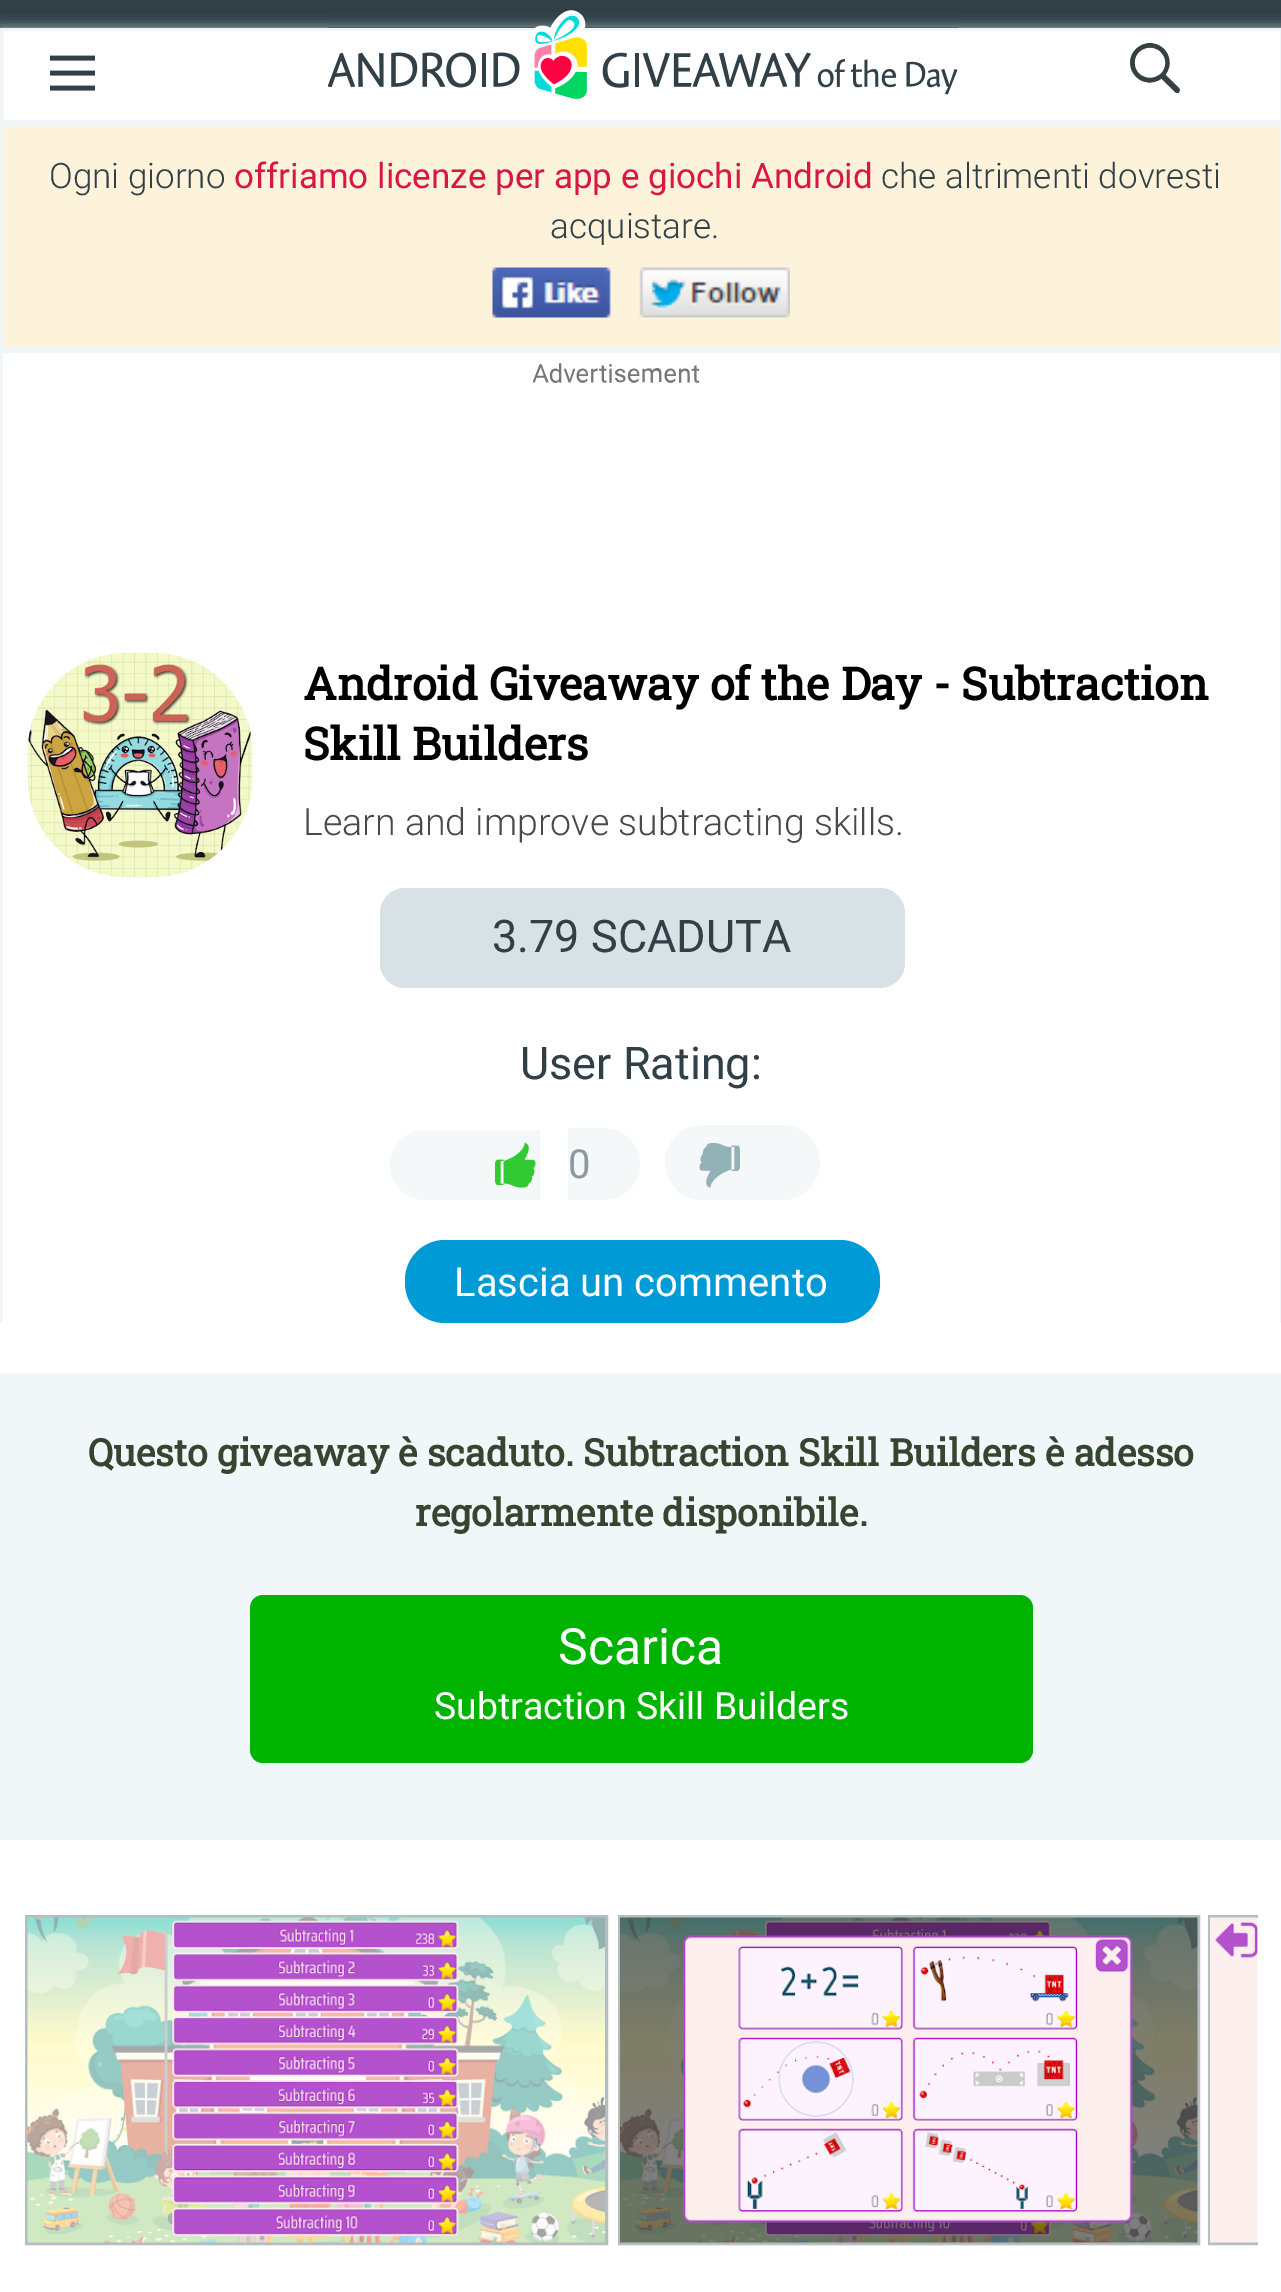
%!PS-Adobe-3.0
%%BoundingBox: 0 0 1281 2292
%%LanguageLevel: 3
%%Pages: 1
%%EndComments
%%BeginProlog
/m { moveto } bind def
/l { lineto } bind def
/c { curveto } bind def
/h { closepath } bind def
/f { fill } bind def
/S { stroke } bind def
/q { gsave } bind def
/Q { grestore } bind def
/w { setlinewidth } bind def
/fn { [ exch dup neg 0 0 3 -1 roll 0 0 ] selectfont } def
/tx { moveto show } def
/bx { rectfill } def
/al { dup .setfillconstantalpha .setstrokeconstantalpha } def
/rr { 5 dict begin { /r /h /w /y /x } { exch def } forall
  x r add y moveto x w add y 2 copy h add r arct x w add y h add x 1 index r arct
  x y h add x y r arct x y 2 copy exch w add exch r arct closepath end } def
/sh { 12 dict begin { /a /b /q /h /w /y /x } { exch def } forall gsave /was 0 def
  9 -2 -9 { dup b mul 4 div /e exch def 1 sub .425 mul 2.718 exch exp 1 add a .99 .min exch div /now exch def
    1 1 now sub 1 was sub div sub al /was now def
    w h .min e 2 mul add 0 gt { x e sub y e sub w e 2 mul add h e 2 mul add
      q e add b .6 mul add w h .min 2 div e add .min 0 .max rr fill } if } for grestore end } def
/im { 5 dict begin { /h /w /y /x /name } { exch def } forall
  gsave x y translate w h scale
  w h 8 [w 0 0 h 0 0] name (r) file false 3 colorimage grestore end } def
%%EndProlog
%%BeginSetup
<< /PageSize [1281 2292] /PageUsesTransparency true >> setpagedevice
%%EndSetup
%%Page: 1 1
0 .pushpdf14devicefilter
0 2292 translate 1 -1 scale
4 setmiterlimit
0.192 0.251 0.275 setrgbcolor
0 0 1281 2292 bx
0.78 0.871 0.894 setrgbcolor
0 28 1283 95 0 6 0.8 sh
1 setgray
1.5 29.5 m 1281.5 29.5 l 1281.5 121.5 l 1.5 121.5 l h q f Q
0.941 0.965 0.973 setrgbcolor
3 w
S
(image0.raw) 50 55 45 36 im
(image1.raw) 328 10 630 89 im
(image2.raw) 1130 43 50 50 im
0.992 0.953 0.859 setrgbcolor
1.5 124.5 m 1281.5 124.5 l 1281.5 348.5 l 1.5 348.5 l h q f Q
0.941 0.965 0.973 setrgbcolor
S
/Roboto-Light 35 fn
0.192 0.251 0.275 setrgbcolor
(Ogni giorno) 49 188 tx
/Roboto-Regular 35 fn
0.851 0.09 0.275 setrgbcolor
(offriamo licenze per app e giochi Android) 234 188 tx
/Roboto-Light 35 fn
0.192 0.251 0.275 setrgbcolor
(che altrimenti dovresti) 881 188 tx
(acquistare.) 550 238 tx
(image3.raw) 492 267 119 51 im
(image4.raw) 639 267 151 51 im
1 setgray
3 353 1277 970 bx
0.941 0.965 0.973 setrgbcolor
0 350 1281 3 bx
1280 350 1 973 bx
0 350 3 973 bx
(image5.raw) 533 363 167 20 im
(image6.raw) 27 652 226 226 im
/RobotoSlab-Bold 45 fn
0 setgray
(Android Giveaway of the Day - Subtraction) 303 700 tx
(Skill Builders) 303 760 tx
/Roboto-Light 37.5 fn
0.286 setgray
(Learn and improve subtracting skills.) 303 835 tx
0.847 0.886 0.902 setrgbcolor
380 888 525 100 25 rr f
/Roboto-Regular 45 fn
0.192 0.251 0.275 setrgbcolor
(3.79 SCADUTA) 492 952 tx
(User Rating:) 520 1079 tx
0.957 0.973 0.976 setrgbcolor
425 1130 m 540 1130 l 540 1200 l 425 1200 l 405.5 1200 390 1184.5 390 1165 c 390 1145.5 405.5 1130 425 1130 c h f
568 1128 m 604 1128 l 624 1128 640 1144 640 1164 c 640 1184 624 1200 604 1200 c 568 1200 l h f
(image7.raw) 495 1143 41 45 im
/Roboto-Regular 40 fn
0.549 0.6 0.62 setrgbcolor
(0) 568 1178 tx
0.957 0.973 0.976 setrgbcolor
665 1125 155 75 37.5 rr f
(image8.raw) 699 1143 41 45 im
0 0.604 0.843 setrgbcolor
405 1240 475 83 40 rr f
1 setgray
(Lascia un commento) 454 1296 tx
0 1323 1281 969 bx
0.945 0.965 0.973 setrgbcolor
0 1373 1281 467 bx
/RobotoSlab-Bold 37.5 fn
0.212 0.271 0.188 setrgbcolor
(Questo giveaway è scaduto. Subtraction Skill Builders è adesso) 88 1466 tx
(regolarmente disponibile.) 415 1526 tx
0 0.702 0 setrgbcolor
250 1595 783 168 13 rr f
/Roboto-Regular 50 fn
1 setgray
(Scarica) 558 1664 tx
/Roboto-Regular 37.5 fn
(Subtraction Skill Builders) 434 1719 tx
0.706 0.741 0.753 setrgbcolor
26.5 1916.5 580 327 rectstroke
619.5 1916.5 579 327 rectstroke
q
25 1915 1233 338 rectclip
1209.5 1916.5 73 327 rectstroke
Q
(image9.raw) 27 1917 578 326 im
(image10.raw) 620 1917 578 326 im
(image11.raw) 1210 1917 48 326 im
.poppdf14devicefilter showpage
%%EOF
